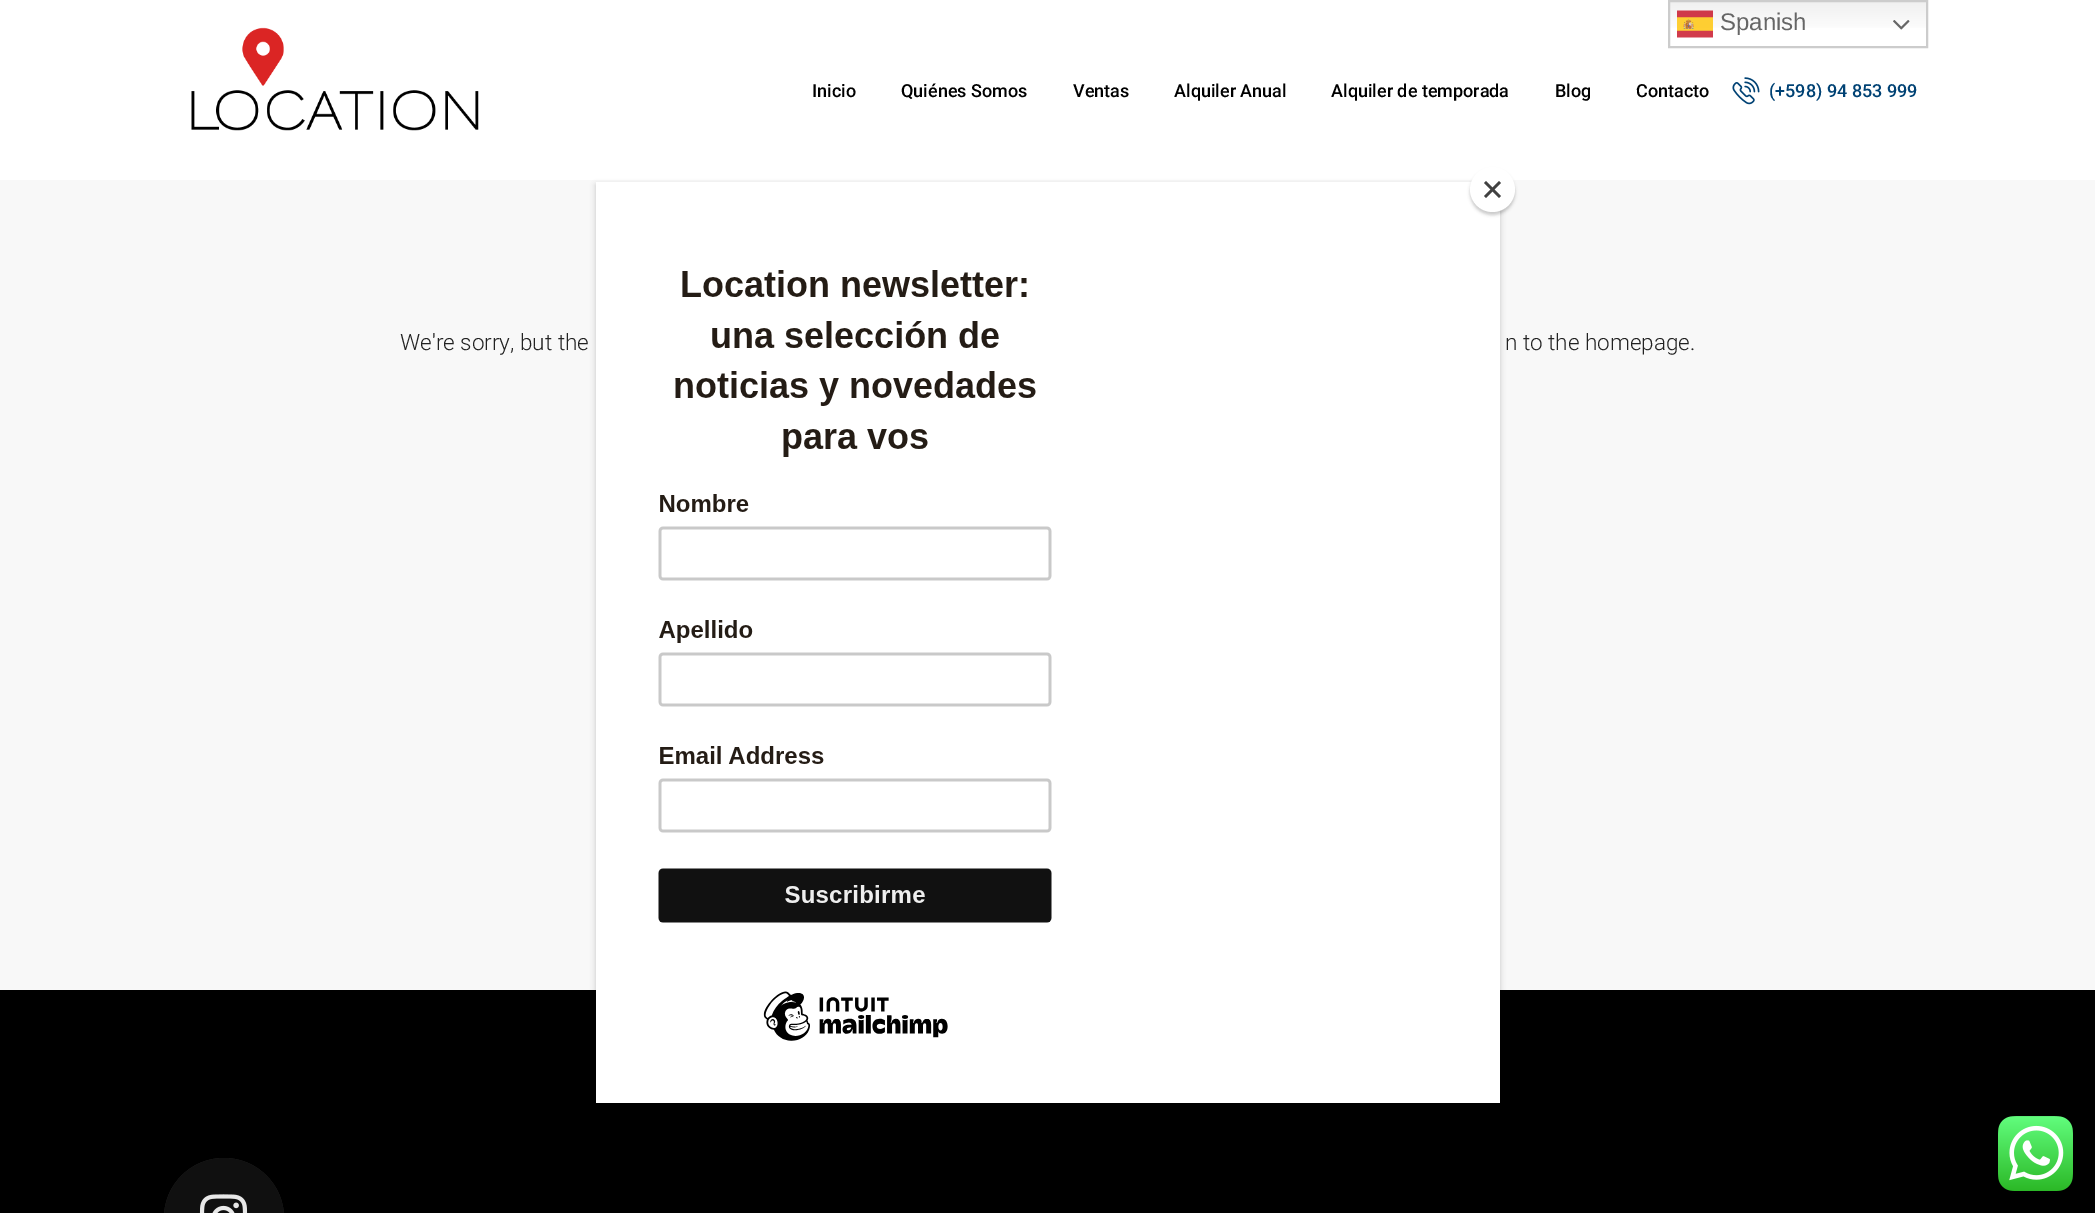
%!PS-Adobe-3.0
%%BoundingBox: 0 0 2095 1213
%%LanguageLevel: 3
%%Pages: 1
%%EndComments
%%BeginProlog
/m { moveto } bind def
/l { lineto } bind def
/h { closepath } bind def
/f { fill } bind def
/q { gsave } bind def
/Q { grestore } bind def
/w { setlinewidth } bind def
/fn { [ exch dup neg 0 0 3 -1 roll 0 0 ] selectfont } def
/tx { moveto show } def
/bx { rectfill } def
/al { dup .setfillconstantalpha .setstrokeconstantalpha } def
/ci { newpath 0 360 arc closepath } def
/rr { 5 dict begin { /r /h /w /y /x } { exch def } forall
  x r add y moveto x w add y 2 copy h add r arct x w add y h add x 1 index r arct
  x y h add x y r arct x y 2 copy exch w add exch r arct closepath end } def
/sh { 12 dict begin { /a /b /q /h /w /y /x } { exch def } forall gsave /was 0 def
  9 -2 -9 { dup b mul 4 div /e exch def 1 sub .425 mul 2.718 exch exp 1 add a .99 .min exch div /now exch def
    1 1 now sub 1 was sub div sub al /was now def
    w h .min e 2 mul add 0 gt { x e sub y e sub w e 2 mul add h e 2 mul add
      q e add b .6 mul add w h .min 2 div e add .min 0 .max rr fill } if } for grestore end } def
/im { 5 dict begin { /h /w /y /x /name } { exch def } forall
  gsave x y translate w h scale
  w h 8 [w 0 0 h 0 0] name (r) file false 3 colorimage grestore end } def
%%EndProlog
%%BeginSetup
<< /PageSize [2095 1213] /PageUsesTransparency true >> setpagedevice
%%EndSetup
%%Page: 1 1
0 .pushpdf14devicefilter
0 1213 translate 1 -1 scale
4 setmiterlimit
0.973 setgray
0 0 2095 1213 bx
1 setgray
0 0 2095 180 bx
q 1670 2 m 1926 2 l 1926 28 l 1670 28 l h clip newpath
<< /ShadingType 2 /ColorSpace /DeviceRGB /Coords [1798 0 1798 48] /Extend [true true] /Function << /FunctionType 3 /Domain [0 1] /Functions [<< /FunctionType 2 /Domain [0 1] /C0 [0.937 0.937 0.937] /C1 [1 1 1] /N 1 >> << /FunctionType 2 /Domain [0 1] /C0 [1 1 1] /C1 [1 1 1] /N 1 >>] /Bounds [0.7] /Encode [0 1 0 1] >> >> shfill Q
0.8 setgray
2 w
1669 1 258 46 rectstroke
(image0.raw) 1677 10 36 28 im
/LiberationSans-Regular 24 fn
0.4 setgray
(Spanish) 1720 30 tx
(image1.raw) 1893 20 17 10 im
(image2.raw) 191 27 288 104 im
/Roboto-Medium 18 fn
0 setgray
(Inicio) 812 97 tx
(Quiénes Somos) 901 97 tx
(Ventas) 1073 97 tx
(Alquiler Anual) 1174 97 tx
(Alquiler de temporada) 1331 97 tx
(Blog) 1555 97 tx
(Contacto) 1636 97 tx
(image3.raw) 1732 77 28 28 im
0 0.259 0.455 setrgbcolor
(\(+598\) 94 853 999) 1769 97 tx
/Roboto-Light 22.5 fn
0.133 setgray
(We're sorry, but the) 400 350 tx
(n to the homepage.) 1505 350 tx
0 setgray
0 990 2095 223 bx
596 185 904 921 0 3 0.2 sh
(image4.raw) 596 182 904 921 im
1470 170 45 45 22.5 1.5 0.2 sh
1 setgray
1492.5 189.5 22.5 ci f
0.255 setgray
1499 181 m 1501 183 l 1486 198 l 1484 196 l h f
1484 183 m 1486 181 l 1501 196 l 1499 198 l h f
0.2 setgray
164 1158 120 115 60 rr f
0.68 al
0 setgray
164 1158 120 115 60 rr f
1 al
(image5.raw) 199 1194 49 19 im
(image6.raw) 1998 1116 75 75 im
.poppdf14devicefilter showpage
%%EOF
